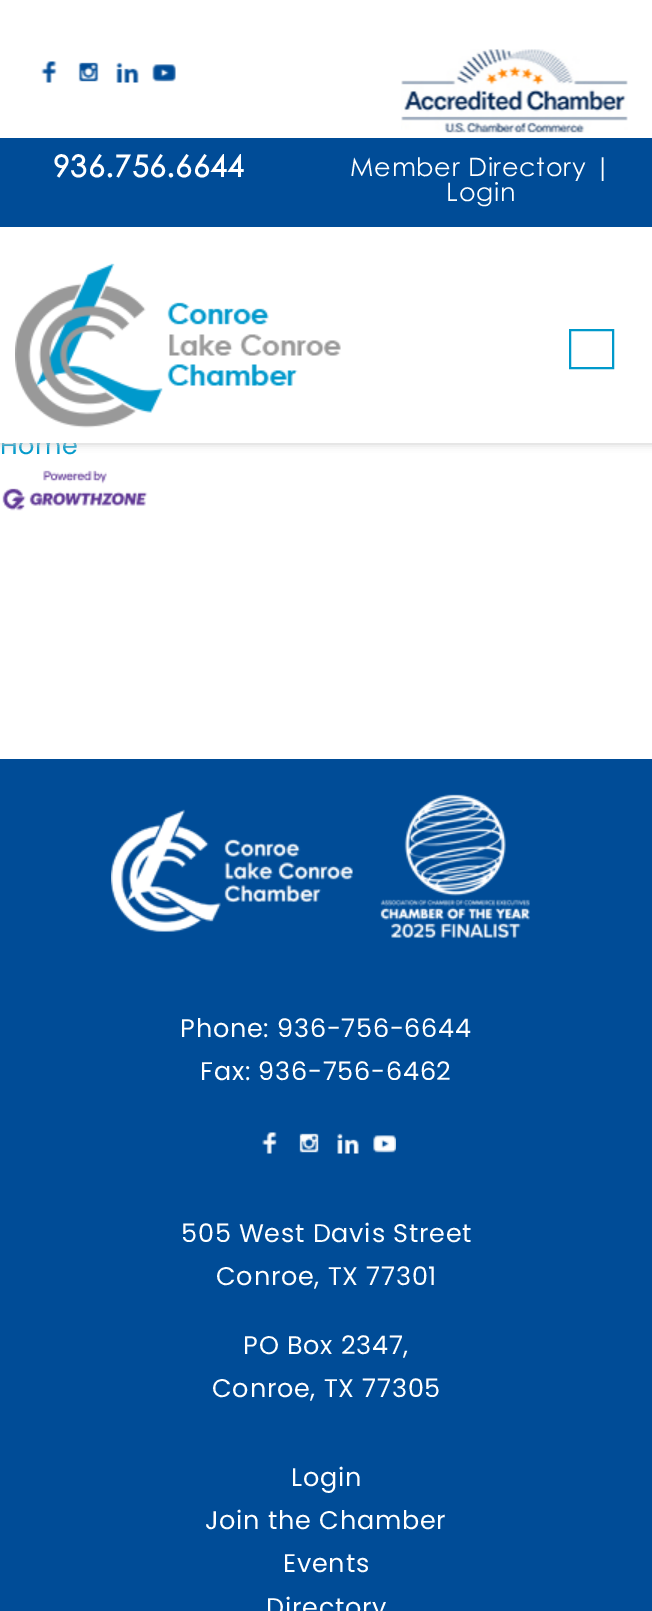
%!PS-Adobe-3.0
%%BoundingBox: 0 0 652 1611
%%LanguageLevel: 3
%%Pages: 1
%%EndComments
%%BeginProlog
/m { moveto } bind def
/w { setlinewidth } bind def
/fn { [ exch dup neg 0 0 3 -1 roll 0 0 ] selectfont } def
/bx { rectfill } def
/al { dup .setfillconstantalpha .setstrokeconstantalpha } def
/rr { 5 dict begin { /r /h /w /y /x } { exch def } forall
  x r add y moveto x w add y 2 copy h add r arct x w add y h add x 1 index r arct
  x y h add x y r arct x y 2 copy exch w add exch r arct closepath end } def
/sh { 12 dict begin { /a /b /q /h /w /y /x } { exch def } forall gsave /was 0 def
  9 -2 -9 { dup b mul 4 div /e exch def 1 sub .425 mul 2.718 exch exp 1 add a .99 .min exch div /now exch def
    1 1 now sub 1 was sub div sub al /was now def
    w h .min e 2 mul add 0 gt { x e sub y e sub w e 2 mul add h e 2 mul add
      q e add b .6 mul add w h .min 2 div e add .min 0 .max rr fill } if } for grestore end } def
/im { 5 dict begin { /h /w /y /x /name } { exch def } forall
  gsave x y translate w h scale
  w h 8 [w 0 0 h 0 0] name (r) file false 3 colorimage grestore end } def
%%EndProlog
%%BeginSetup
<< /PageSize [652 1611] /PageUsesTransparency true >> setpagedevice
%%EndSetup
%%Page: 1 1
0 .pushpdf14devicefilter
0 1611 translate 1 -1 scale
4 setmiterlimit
1 setgray
0 0 652 1611 bx
/Poppins-Regular 25.5 fn
0 0.6 0.796 setrgbcolor
0 454 m 0.75 0 (Home) ashow
(image0.raw) 2 470 146 41 im
0.8 setgray
0 2 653 442 0 4 1 sh
1 setgray
0 0 652 443 bx
(image1.raw) 41 61 16 22 im
(image2.raw) 78 62 21 20 im
(image3.raw) 116 62 23 21 im
(image4.raw) 152 64 24 18 im
(image5.raw) 401 49 227 84 im
0 0.298 0.592 setrgbcolor
0 138 652 89 bx
/CenturyGothic-Bold 30 fn
1 setgray
53 177 m 0.75 0 (936.756.6644) ashow
/CenturyGothic-Regular 25.5 fn
350 176 m 0.75 0 (Member Directory |) ashow
446 201 m 0.75 0 (Login) ashow
(image6.raw) 15 263 326 165 im
0 0.6 0.796 setrgbcolor
2 w
570 330 43 38 rectstroke
0 0.298 0.592 setrgbcolor
0 759 652 852 bx
(image7.raw) 111 794 419 144 im
/Poppins-Regular 25.5 fn
1 setgray
180 1037 m 0.75 0 (Phone: 936-756-6644) ashow
200 1080 m 0.75 0 (Fax: 936-756-6462) ashow
(image8.raw) 262 1132 15 22 im
(image9.raw) 299 1133 20 20 im
(image10.raw) 337 1133 22 21 im
(image11.raw) 373 1135 23 18 im
181 1242 m 0.75 0 (505 West Davis Street) ashow
216 1285 m 0.75 0 (Conroe, TX 77301) ashow
243 1354 m 0.75 0 (PO Box 2347,) ashow
212 1397 m 0.75 0 (Conroe, TX 77305) ashow
291 1486 m 0.75 0 (Login) ashow
205 1529 m 0.75 0 (Join the Chamber) ashow
283 1572 m 0.75 0 (Events) ashow
266 1616 m 0.75 0 (Directory) ashow
.poppdf14devicefilter showpage
%%EOF
